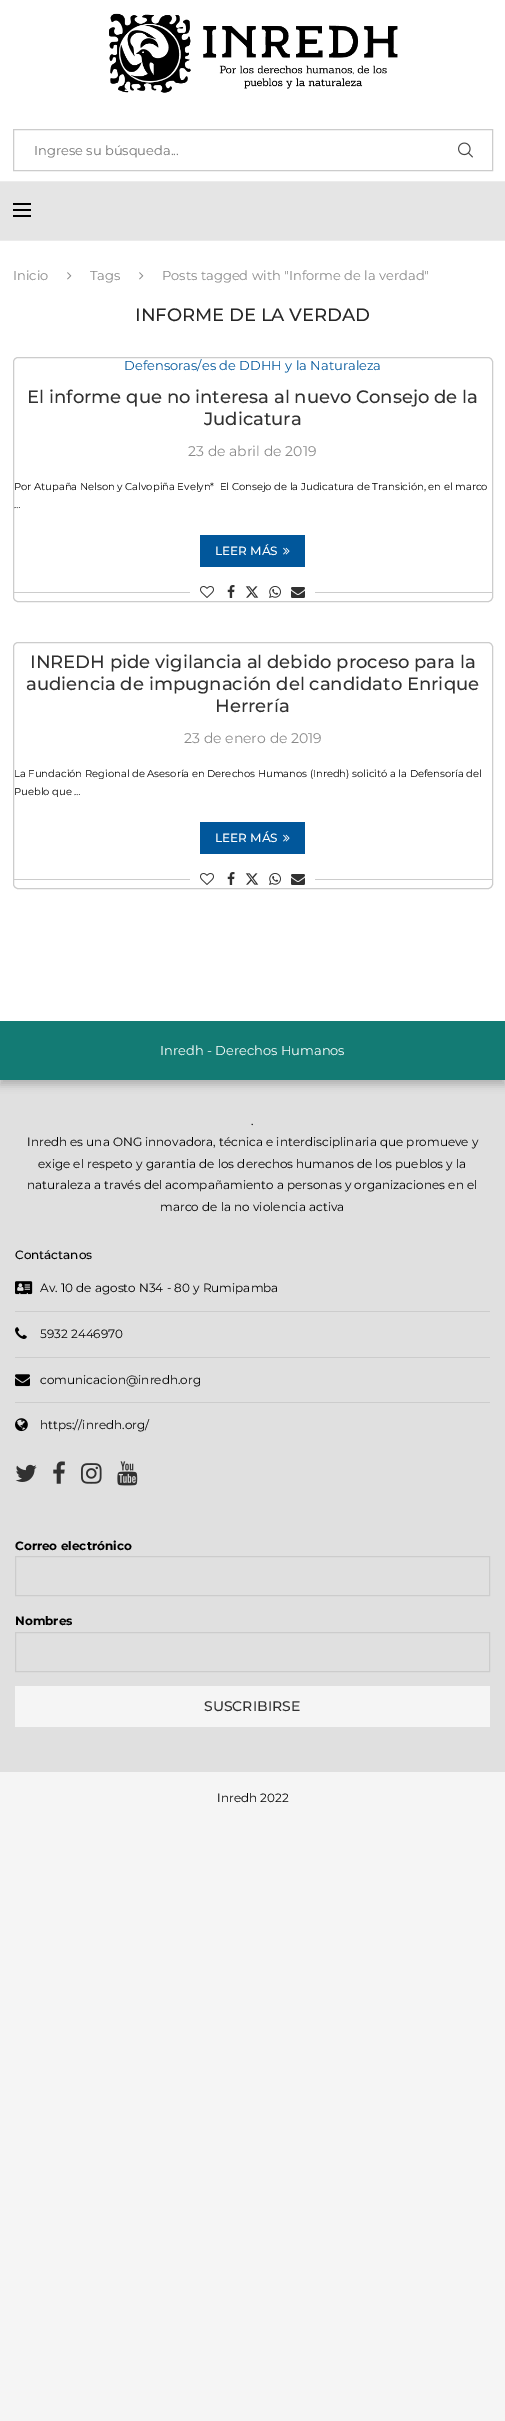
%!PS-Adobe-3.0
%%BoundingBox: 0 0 505 2421
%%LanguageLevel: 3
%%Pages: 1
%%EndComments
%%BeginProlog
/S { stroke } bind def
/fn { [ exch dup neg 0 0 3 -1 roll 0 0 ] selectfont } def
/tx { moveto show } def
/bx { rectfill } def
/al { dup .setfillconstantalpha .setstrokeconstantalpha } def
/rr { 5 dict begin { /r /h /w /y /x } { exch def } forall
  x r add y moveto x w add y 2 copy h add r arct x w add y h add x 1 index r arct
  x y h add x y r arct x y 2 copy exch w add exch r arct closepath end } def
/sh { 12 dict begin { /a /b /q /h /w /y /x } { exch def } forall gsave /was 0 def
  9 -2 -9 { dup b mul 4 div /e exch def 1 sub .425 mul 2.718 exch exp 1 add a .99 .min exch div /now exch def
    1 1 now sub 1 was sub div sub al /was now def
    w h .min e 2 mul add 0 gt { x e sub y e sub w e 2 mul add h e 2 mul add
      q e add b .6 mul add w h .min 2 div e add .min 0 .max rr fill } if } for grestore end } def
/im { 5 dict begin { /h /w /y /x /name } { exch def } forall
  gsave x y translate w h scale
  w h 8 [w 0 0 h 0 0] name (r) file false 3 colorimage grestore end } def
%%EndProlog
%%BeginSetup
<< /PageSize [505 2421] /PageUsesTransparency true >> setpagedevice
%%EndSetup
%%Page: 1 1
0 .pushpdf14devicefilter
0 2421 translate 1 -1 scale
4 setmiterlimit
0.961 setgray
0 0 505 2421 bx
0.878 setgray
0 1080 505 692 bx
0 setgray
0 5 505 1080 0 4 0.2 sh
1 setgray
0 0 505 1021 bx
(image0.raw) 109 13 289 80 im
0.8 setgray
13.5 129.5 479 41 rectstroke
/Montserrat-Regular 13 fn
0.459 setgray
(Ingrese su búsqueda...) 34 155 tx
(image1.raw) 458 142 15 16 im
0.898 setgray
0 182 505 58 bx
0.925 setgray
0 181 505 1 bx
0 240 505 1 bx
0 setgray
13 203 18 2 bx
13 209 18 2 bx
13 215 18 2 bx
0.533 setgray
(Inicio) 13 280 tx
(image2.raw) 67 272 5 8 im
(Tags) 90 280 tx
(image2.raw) 139 272 5 8 im
(Posts tagged with "Informe de la verdad") 162 280 tx
/Montserrat-Medium 18 fn
0.149 setgray
(INFORME DE LA VERDAD) 135 321 tx
0.8 setgray
13.5 357.5 479 244 4.5 rr S
/Montserrat-Regular 13 fn
0.004 0.341 0.608 setrgbcolor
(Defensoras/es de DDHH y la Naturaleza) 124 370 tx
/Montserrat-Medium 18 fn
0.192 setgray
(El informe que no interesa al nuevo Consejo de la) 27 403 tx
(Judicatura) 204 425 tx
/Montserrat-Regular 14 fn
0.533 setgray
(23 de abril de 2019) 188 456 tx
/Montserrat-Regular 10 fn
0 setgray
(Por Atupaña Nelson y Calvopiña Evelyn*  El Consejo de la Judicatura de Transición, en el marco) 14 490 tx
(…) 14 508 tx
0.004 0.341 0.608 setrgbcolor
200 535 105 32 bx
/Montserrat-Medium 12 fn
1 setgray
(LEER MÁS) 215 555 tx
(image3.raw) 283 547 7 8 im
0.8 setgray
14 592 478 1 bx
1 setgray
190 592 125 1 bx
(image4.raw) 200 586 14 12 im
(image5.raw) 227 585 8 13 im
(image6.raw) 245 586 14 12 im
(image7.raw) 269 586 12 12 im
(image8.raw) 291 587 14 11 im
0.8 setgray
13.5 642.5 479 246 4.5 rr S
/Montserrat-Medium 18 fn
0.192 setgray
(INREDH pide vigilancia al debido proceso para la) 30 668 tx
(audiencia de impugnación del candidato Enrique) 26 690 tx
(Herrería) 215 712 tx
/Montserrat-Regular 14 fn
0.533 setgray
(23 de enero de 2019) 184 743 tx
/Montserrat-Regular 10 fn
0 setgray
(La Fundación Regional de Asesoría en Derechos Humanos \(Inredh\) solicitó a la Defensoría del) 14 777 tx
(Pueblo que …) 14 795 tx
0.004 0.341 0.608 setrgbcolor
200 822 105 32 bx
/Montserrat-Medium 12 fn
1 setgray
(LEER MÁS) 215 842 tx
(image3.raw) 283 834 7 8 im
0.8 setgray
14 879 478 1 bx
1 setgray
190 879 125 1 bx
(image4.raw) 200 873 14 12 im
(image5.raw) 227 872 8 13 im
(image6.raw) 245 873 14 12 im
(image7.raw) 269 873 12 12 im
(image8.raw) 291 874 14 11 im
0.075 0.482 0.455 setrgbcolor
0 1021 505 59 bx
/Montserrat-Regular 13 fn
1 setgray
(Inredh - Derechos Humanos) 160 1055 tx
/Montserrat-Regular 12 fn
0 setgray
(.) 251 1125 tx
(Inredh es una ONG innovadora, técnica e interdisciplinaria que promueve y) 27 1146 tx
(exige el respeto y garantia de los derechos humanos de los pueblos y la) 38 1168 tx
(naturaleza a través del acompañamiento a personas y organizaciones en el) 27 1189 tx
(marco de la no violencia activa) 160 1211 tx
/Montserrat-Medium 12 fn
(Contáctanos) 15 1259 tx
0.8 setgray
15 1311 475 1 bx
(image9.raw) 15 1281 18 14 im
/Montserrat-Regular 12 fn
0 setgray
(Av. 10 de agosto N34 - 80 y Rumipamba) 40 1292 tx
0.8 setgray
15 1357 475 1 bx
(image10.raw) 15 1327 12 12 im
0 setgray
(5932 2446970) 40 1338 tx
0.8 setgray
15 1402 475 1 bx
(image11.raw) 15 1374 15 13 im
0 setgray
(comunicacion@inredh.org) 40 1384 tx
(image12.raw) 15 1418 13 14 im
(https://inredh.org/) 40 1429 tx
(image13.raw) 15 1464 22 18 im
(image14.raw) 53 1461 12 23 im
(image15.raw) 81 1463 21 21 im
(image16.raw) 117 1461 21 25 im
/Montserrat-Bold 12 fn
(Correo electrónico) 15 1550 tx
0.8 setgray
15.5 1556.5 474 39 rectstroke
0 setgray
(Nombres) 15 1625 tx
0.8 setgray
15.5 1632.5 474 39 rectstroke
0.961 setgray
15 1686 475 41 bx
/Montserrat-Medium 14 fn
0.192 setgray
(SUSCRIBIRSE) 204 1711 tx
/Montserrat-Regular 12 fn
0 setgray
(Inredh 2022) 217 1802 tx
.poppdf14devicefilter showpage
%%EOF
